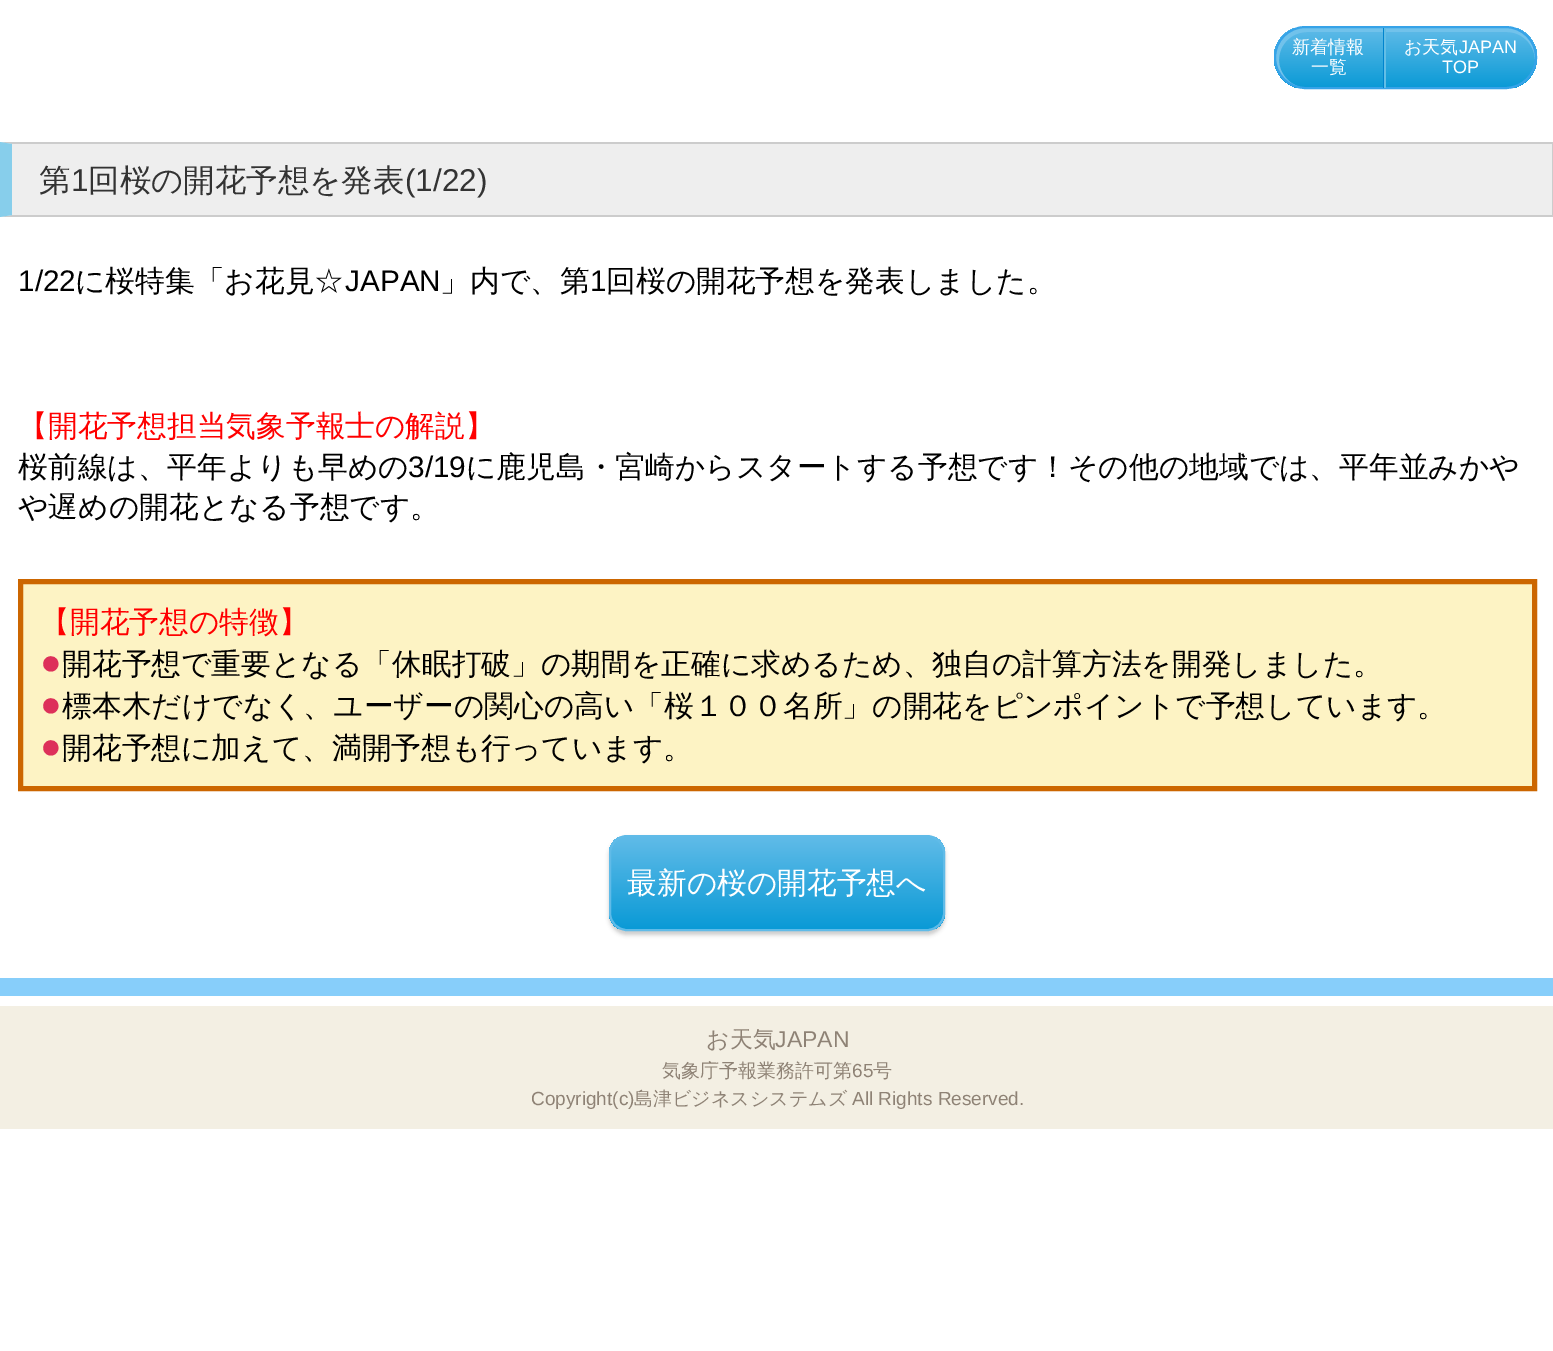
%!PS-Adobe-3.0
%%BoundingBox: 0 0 1553 1351
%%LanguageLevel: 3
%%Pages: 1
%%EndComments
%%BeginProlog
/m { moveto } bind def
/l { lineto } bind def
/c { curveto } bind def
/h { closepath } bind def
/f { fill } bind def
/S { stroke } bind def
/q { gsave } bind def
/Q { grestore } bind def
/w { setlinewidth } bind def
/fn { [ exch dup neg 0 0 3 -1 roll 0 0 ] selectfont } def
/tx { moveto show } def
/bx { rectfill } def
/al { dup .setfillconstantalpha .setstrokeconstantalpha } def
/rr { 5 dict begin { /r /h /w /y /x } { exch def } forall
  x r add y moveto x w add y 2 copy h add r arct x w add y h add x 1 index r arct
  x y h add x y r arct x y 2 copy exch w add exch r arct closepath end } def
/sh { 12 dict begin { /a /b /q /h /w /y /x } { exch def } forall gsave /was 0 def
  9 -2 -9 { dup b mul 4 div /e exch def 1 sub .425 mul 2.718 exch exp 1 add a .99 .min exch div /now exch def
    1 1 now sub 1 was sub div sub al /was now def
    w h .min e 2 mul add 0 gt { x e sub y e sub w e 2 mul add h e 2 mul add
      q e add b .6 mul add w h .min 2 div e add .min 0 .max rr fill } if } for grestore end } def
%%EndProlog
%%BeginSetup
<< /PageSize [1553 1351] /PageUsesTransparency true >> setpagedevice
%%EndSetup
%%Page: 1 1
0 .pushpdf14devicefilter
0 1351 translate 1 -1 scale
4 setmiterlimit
1 setgray
0 0 1553 1351 bx
q
1274 26 263 63 31.5 rr clip newpath
q 1274 28 m 1537 28 l 1537 88 l 1274 88 l h clip newpath
<< /ShadingType 2 /ColorSpace /DeviceRGB /Coords [1276 28 1276 88] /Extend [true true] /Function << /FunctionType 2 /Domain [0 1] /C0 [0.376 0.733 0.91] /C1 [0.039 0.604 0.839] /N 1 >> >> shfill Q
Q
0.443 0.761 0.922 setrgbcolor
1307 32 m 1507 32 l 1522 32 1534 44 1535 59 c 1535 58 l 1535 41 1522 28 1505 28 c 1306 28 l 1289 28 1276 41 1276 58 c 1276 75 1289 88 1306 88 c 1307 88 l 1292 88 1279 75 1279 60 c 1279 44 1292 32 1307 32 c h f
0.212 0.639 0.91 setrgbcolor
2 w
1275 27 261 61 30.5 rr S
0 0.518 0.808 setrgbcolor
1383 28 1 60 bx
/WenQuanYiZenHei-Medium 18 fn
1 setgray
(新着情報) 1292 53 tx
(一覧) 1311 73 tx
0.388 0.745 0.902 setrgbcolor
1384 28 2 60 bx
1 setgray
(お天気) 1404 53 tx
/LiberationSans-Regular 18 fn
(JAPAN) 1459 53 tx
(TOP) 1442 73 tx
0.933 setgray
12 144 1540 71 bx
0.8 setgray
0 142 m 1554 142 l 1552 144 l 12 144 l h f
1552 142 1 75 bx
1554 217 m 0 217 l 12 215 l 1552 215 l h f
0.529 0.808 0.922 setrgbcolor
0 217 m 0 142 l 12 144 l 12 215 l h f
/WenQuanYiZenHei-Medium 31.5 fn
0.2 setgray
(第) 39 191 tx
/LiberationSans-Regular 31.5 fn
(1) 71 191 tx
/WenQuanYiZenHei-Medium 31.5 fn
(回桜の開花予想を発表) 88 191 tx
/LiberationSans-Regular 31.5 fn
(\(1/22\)) 405 191 tx
/LiberationSans-Regular 29.75 fn
0 setgray
(1/22) 18 291 tx
/WenQuanYiZenHei-Medium 29.75 fn
(に桜特集「お花見☆) 75 291 tx
/LiberationSans-Regular 29.75 fn
(JAPAN) 345 291 tx
/WenQuanYiZenHei-Medium 29.75 fn
(」内で、第) 440 291 tx
/LiberationSans-Regular 29.75 fn
(1) 590 291 tx
/WenQuanYiZenHei-Medium 29.75 fn
(回桜の開花予想を発表しました。) 606 291 tx
1 0 0 setrgbcolor
(【開花予想担当気象予報士の解説】) 18 436 tx
0 setgray
(桜前線は、平年よりも早めの) 18 477 tx
/LiberationSans-Regular 29.75 fn
(3/19) 408 477 tx
/WenQuanYiZenHei-Medium 29.75 fn
(に鹿児島・宮崎からスタートする予想です！その他の地域では、平年並みかや) 466 477 tx
(や遅めの開花となる予想です。) 18 517 tx
0.992 0.953 0.769 setrgbcolor
20.5 581.5 m 1534.5 581.5 l 1534.5 788.5 l 20.5 788.5 l h q f Q
0.8 0.4 0 setrgbcolor
5 w
S
1 0 0 setrgbcolor
(【開花予想の特徴】) 40 632 tx
/LiberationSans-Bold 36 fn
0.867 0.188 0.353 setrgbcolor
(●) 40 674 tx
/WenQuanYiZenHei-Medium 29.75 fn
0 setgray
(開花予想で重要となる「休眠打破」の期間を正確に求めるため、独自の計算方法を開発しました。) 62 674 tx
/LiberationSans-Bold 36 fn
0.867 0.188 0.353 setrgbcolor
(●) 40 716 tx
/WenQuanYiZenHei-Medium 29.75 fn
0 setgray
(標本木だけでなく、ユーザーの関心の高い「桜１００名所」の開花をピンポイントで予想しています。) 62 716 tx
/LiberationSans-Bold 36 fn
0.867 0.188 0.353 setrgbcolor
(●) 40 758 tx
/WenQuanYiZenHei-Medium 29.75 fn
0 setgray
(開花予想に加えて、満開予想も行っています。) 62 758 tx
0.8 setgray
609 838 336 97 18 2 1 sh
q
609 835 336 96 18 rr clip newpath
q 609 837 m 945 837 l 945 929 l 609 929 l h clip newpath
<< /ShadingType 2 /ColorSpace /DeviceRGB /Coords [611 837 611 929] /Extend [true true] /Function << /FunctionType 2 /Domain [0 1] /C0 [0.376 0.733 0.91] /C1 [0.039 0.604 0.839] /N 1 >> >> shfill Q
Q
0.376 0.733 0.91 setrgbcolor
2 w
610 836 334 94 17 rr S
1 setgray
(最新の桜の開花予想へ) 627 893 tx
0.529 0.808 0.98 setrgbcolor
0 978 1553 18 bx
0.953 0.937 0.89 setrgbcolor
0 1006 1553 123 bx
/WenQuanYiZenHei-Medium 23 fn
0.557 0.51 0.459 setrgbcolor
(お天気) 706 1047 tx
/LiberationSans-Regular 23 fn
(JAPAN) 775 1047 tx
/WenQuanYiZenHei-Medium 19 fn
(気象庁予報業務許可第) 662 1077 tx
/LiberationSans-Regular 19 fn
(65) 852 1077 tx
/WenQuanYiZenHei-Medium 19 fn
(号) 873 1077 tx
/LiberationSans-Regular 19 fn
(Copyright\(c\)) 531 1105 tx
/WenQuanYiZenHei-Medium 19 fn
(島津ビジネスシステムズ) 634 1105 tx
/LiberationSans-Regular 19 fn
(All Rights Reserved.) 852 1105 tx
.poppdf14devicefilter showpage
%%EOF
